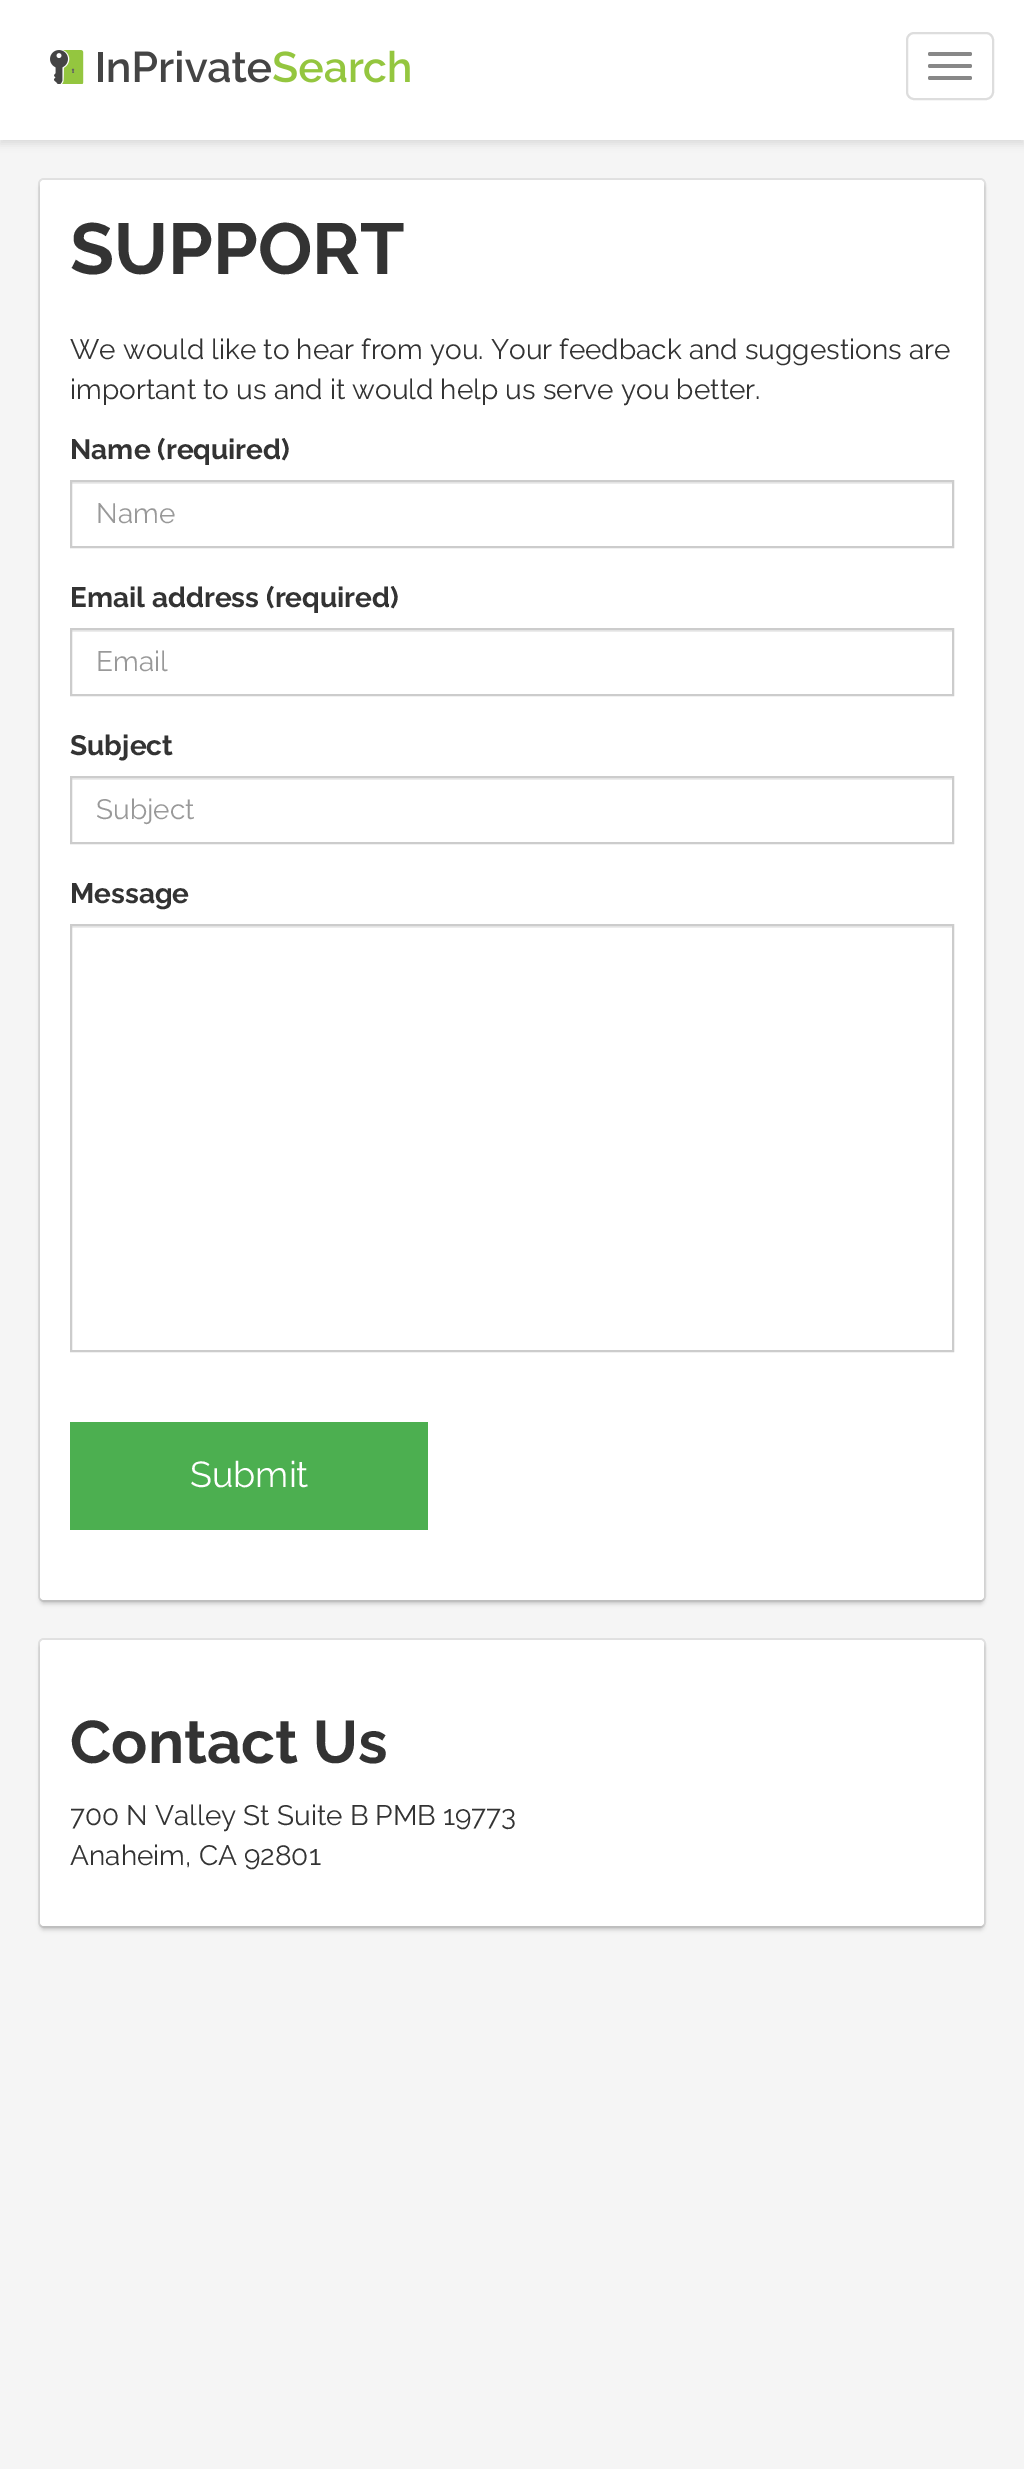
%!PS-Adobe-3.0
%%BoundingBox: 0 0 1024 2469
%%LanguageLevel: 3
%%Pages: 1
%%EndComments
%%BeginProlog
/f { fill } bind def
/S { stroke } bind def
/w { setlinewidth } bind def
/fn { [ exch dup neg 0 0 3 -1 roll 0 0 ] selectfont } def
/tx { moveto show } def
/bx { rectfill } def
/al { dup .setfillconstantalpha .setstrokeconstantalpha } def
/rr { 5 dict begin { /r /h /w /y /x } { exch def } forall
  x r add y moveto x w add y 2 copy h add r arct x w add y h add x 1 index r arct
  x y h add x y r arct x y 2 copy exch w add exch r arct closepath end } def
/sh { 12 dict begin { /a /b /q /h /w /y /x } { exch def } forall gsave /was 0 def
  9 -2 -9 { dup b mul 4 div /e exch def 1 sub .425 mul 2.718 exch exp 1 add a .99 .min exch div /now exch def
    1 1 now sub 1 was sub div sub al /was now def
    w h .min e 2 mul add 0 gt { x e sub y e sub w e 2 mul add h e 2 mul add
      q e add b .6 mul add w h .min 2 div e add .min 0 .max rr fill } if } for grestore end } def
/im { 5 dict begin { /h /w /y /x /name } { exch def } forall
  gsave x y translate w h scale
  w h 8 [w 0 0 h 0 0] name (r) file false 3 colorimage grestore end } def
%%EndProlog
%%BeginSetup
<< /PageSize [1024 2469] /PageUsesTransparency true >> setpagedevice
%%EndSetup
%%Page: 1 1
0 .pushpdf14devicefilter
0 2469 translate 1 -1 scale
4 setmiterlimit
0.961 setgray
0 0 1024 2469 bx
0.749 setgray
0 4 1024 140 0 4 0.5 sh
1 setgray
0 0 1024 140 bx
(image0.raw) 50 50 360 34 im
0.867 setgray
2 w
907 33 86 66 7 rr S
0.533 setgray
928 52 44 4 2 rr f
928 64 44 4 2 rr f
928 76 44 4 2 rr f
0.882 setgray
39 179 946 1422 5 rr S
0 setgray
40 184 944 1420 4 2 0.16 sh
1 setgray
40 180 944 1420 4 rr f
/Raleway-Bold 72 fn
0.2 setgray
(SUPPORT) 70 274 tx
/Raleway-Regular 28 fn
(We would like to hear from you. Your feedback and suggestions are) 70 359 tx
(important to us and it would help us serve you better.) 70 399 tx
/Raleway-Bold 28 fn
(Name \(required\)) 70 459 tx
0.925 setgray
72 482 880 2 bx
0.8 setgray
71 481 882 66 rectstroke
/Raleway-Regular 28 fn
0.6 setgray
(Name) 96 523 tx
/Raleway-Bold 28 fn
0.2 setgray
(Email address \(required\)) 70 607 tx
0.925 setgray
72 630 880 2 bx
0.8 setgray
71 629 882 66 rectstroke
/Raleway-Regular 28 fn
0.6 setgray
(Email) 96 671 tx
/Raleway-Bold 28 fn
0.2 setgray
(Subject) 70 755 tx
0.925 setgray
72 778 880 2 bx
0.8 setgray
71 777 882 66 rectstroke
/Raleway-Regular 28 fn
0.6 setgray
(Subject) 96 819 tx
/Raleway-Bold 28 fn
0.2 setgray
(Message) 70 903 tx
0.925 setgray
72 926 880 2 bx
0.8 setgray
71 925 882 426 rectstroke
0.298 0.686 0.314 setrgbcolor
70 1422 358 108 bx
/Raleway-Regular 36 fn
1 setgray
(Submit) 190 1487 tx
0.882 setgray
39 1639 946 288 5 rr S
0 setgray
40 1644 944 286 4 2 0.16 sh
1 setgray
40 1640 944 286 4 rr f
/Raleway-Bold 60 fn
0.2 setgray
(Contact Us) 70 1763 tx
/Raleway-Regular 28 fn
(700 N Valley St Suite B PMB 19773) 70 1825 tx
(Anaheim, CA 92801) 70 1865 tx
.poppdf14devicefilter showpage
%%EOF
